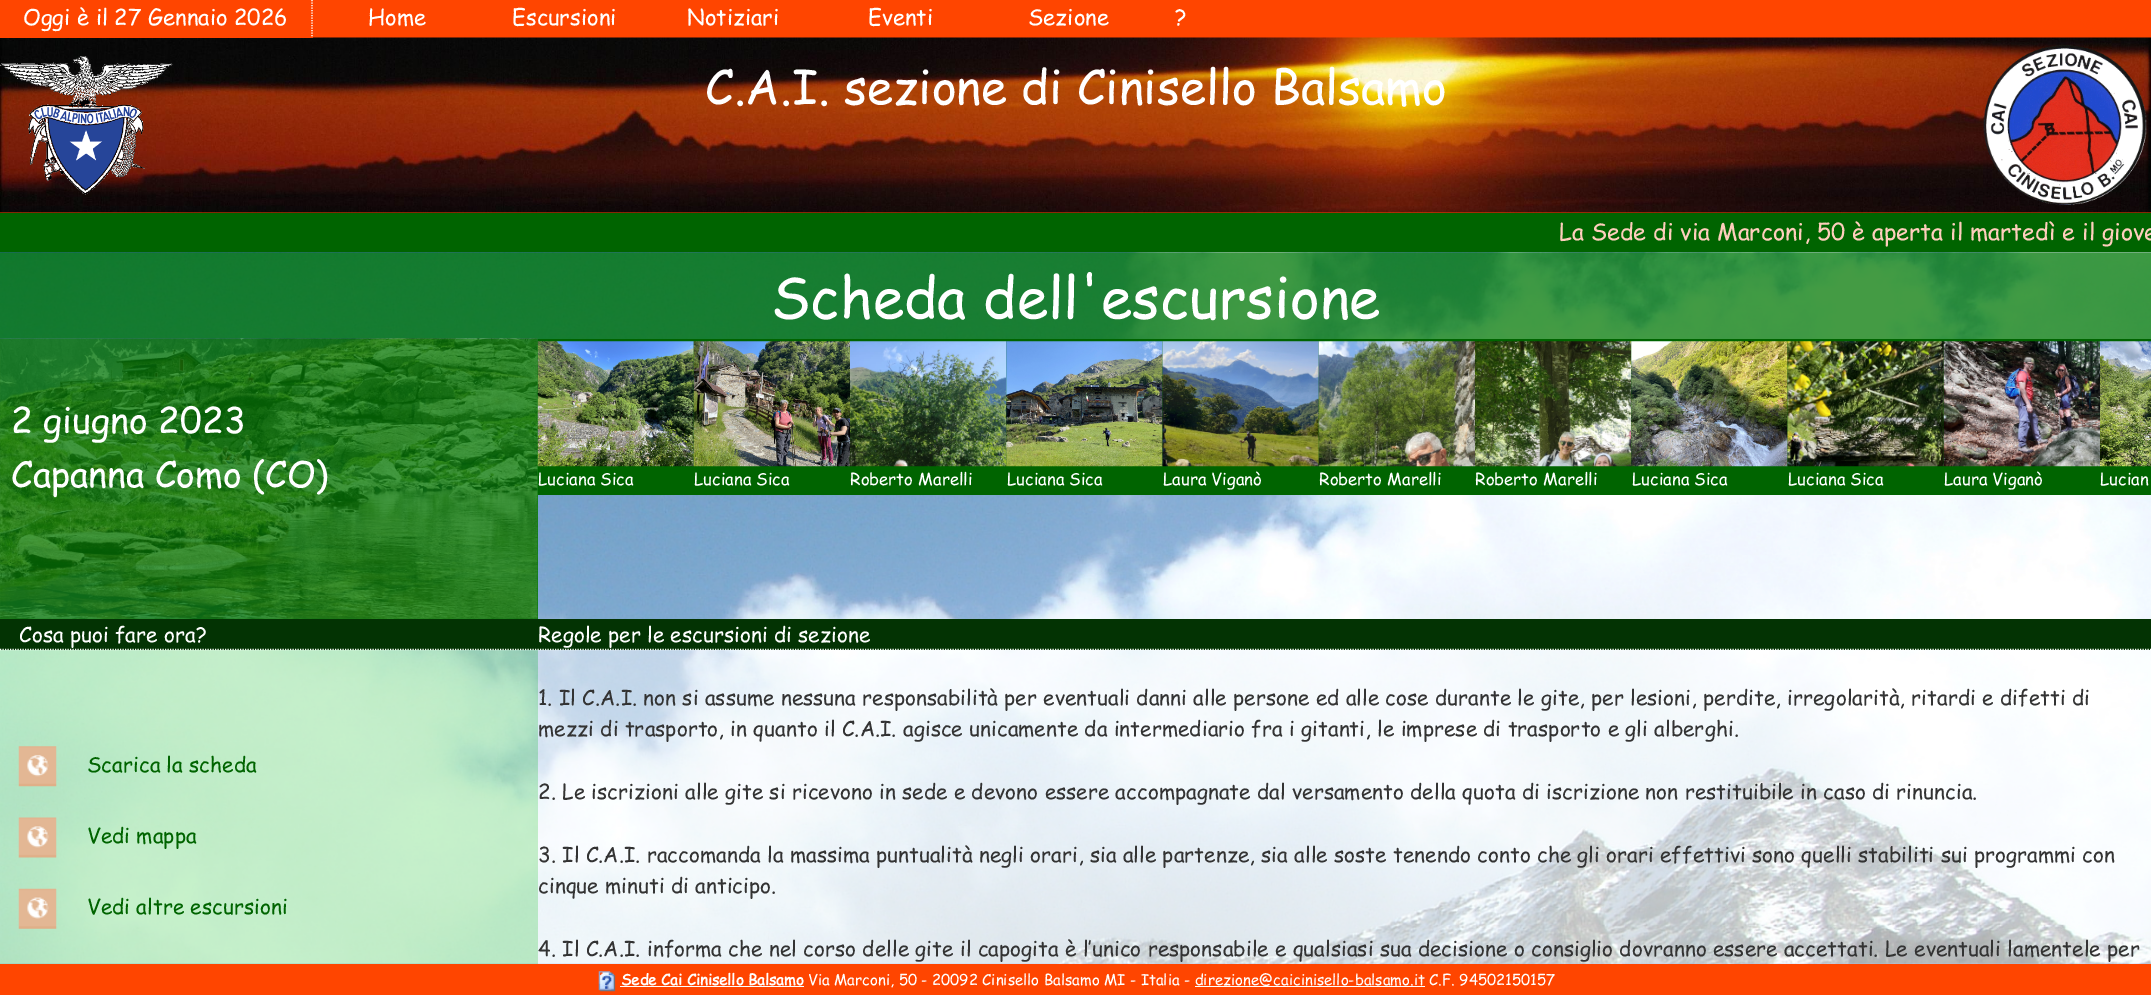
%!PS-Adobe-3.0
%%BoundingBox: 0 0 2151 998
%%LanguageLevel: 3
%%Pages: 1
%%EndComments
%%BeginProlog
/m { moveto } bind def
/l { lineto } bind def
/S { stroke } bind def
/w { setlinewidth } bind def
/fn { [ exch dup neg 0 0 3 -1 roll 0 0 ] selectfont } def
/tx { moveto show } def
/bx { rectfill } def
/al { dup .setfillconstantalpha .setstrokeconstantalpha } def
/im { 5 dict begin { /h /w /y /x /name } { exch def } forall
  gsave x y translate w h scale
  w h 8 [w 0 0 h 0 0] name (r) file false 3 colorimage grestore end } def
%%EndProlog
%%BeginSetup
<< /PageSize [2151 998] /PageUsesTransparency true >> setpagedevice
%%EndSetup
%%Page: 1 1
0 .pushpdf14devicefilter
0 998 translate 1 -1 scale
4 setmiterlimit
1 setgray
0 0 2151 998 bx
1 0.271 0 setrgbcolor
313 0 1838 38 bx
0 212 2151 1 bx
(image0.raw) 0 37 2151 176 im
0 0 313 38 bx
1 setgray
1.2 w
[1.25 1.25] 0 setdash
312 0 m 312 37.5 l S
/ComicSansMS-Regular 22.1 fn
(Oggi è il 27 Gennaio 2026) 23 25 tx
(Home) 368 25 tx
(Escursioni) 512 25 tx
(Notiziari) 687 25 tx
(Eventi) 868 25 tx
(Sezione) 1028 25 tx
(?) 1175 25 tx
(image1.raw) 0 56 173 139 im
/ComicSansMS-Regular 47.4 fn
(C.A.I. sezione di Cinisello Balsamo) 705 104 tx
(image2.raw) 1983 45 164 160 im
0 0.392 0 setrgbcolor
0 213 2151 40 bx
/ComicSansMS-Regular 23.3 fn
0.996 0.808 0.737 setrgbcolor
(La Sede di via Marconi, 50 è aperta il martedì e il giove) 1559 240 tx
(image3.raw) 0 252 2151 712 im
0.75 al
0.024 0.478 0.024 setrgbcolor
0 253 2151 86 bx
/ComicSansMS-Regular 56.9 fn
1 al
1 setgray
(Scheda dell'escursione) 771 318 tx
0.75 al
0.024 0.478 0.024 setrgbcolor
0 339 538 280 bx
1 al
(image4.raw) 0 338 538 281 im
0.75 al
0 339 538 280 bx
/ComicSansMS-Regular 35.75 fn
1 al
1 setgray
(2 giugno 2023) 11 433 tx
(Capanna Como \(CO\)) 11 487 tx
0.2 al
538 495 1613 124 bx
1 al
0 0.392 0 setrgbcolor
538 339 1613 156 bx
(image5.raw) 537 341 157 126 im
/ComicSansMS-Regular 16.75 fn
1 setgray
(Luciana Sica) 538 485 tx
(image6.raw) 693 341 157 126 im
(Luciana Sica) 694 485 tx
(image7.raw) 850 341 157 126 im
(Roberto Marelli) 850 485 tx
(image8.raw) 1006 341 157 126 im
(Luciana Sica) 1007 485 tx
(image9.raw) 1162 341 157 126 im
(Laura Viganò) 1163 485 tx
(image10.raw) 1318 341 157 126 im
(Roberto Marelli) 1319 485 tx
(image11.raw) 1475 341 157 126 im
(Roberto Marelli) 1475 485 tx
(image12.raw) 1631 341 157 126 im
(Luciana Sica) 1632 485 tx
(image13.raw) 1787 341 157 126 im
(Luciana Sica) 1788 485 tx
(image14.raw) 1943 341 157 126 im
(Laura Viganò) 1944 485 tx
(image15.raw) 2100 341 51 126 im
(Lucian) 2100 485 tx
0.6 al
0.655 0.914 0.655 setrgbcolor
0 650 538 314 bx
1 al
0.012 0.2 0.012 setrgbcolor
0 619 2151 31 bx
1 setgray
0 649.5 m 537.5 649.5 l S
/ComicSansMS-Regular 20.9 fn
(Cosa puoi fare ora?) 19 642 tx
(image16.raw) 18 746 39 41 im
0 0.392 0 setrgbcolor
(Scarica la scheda) 87 772 tx
(image17.raw) 18 817 39 41 im
(Vedi mappa) 87 843 tx
(image18.raw) 18 888 39 41 im
(Vedi altre escursioni) 87 914 tx
0.6 al
1 setgray
538 650 1613 314 bx
1 al
537.5 649.5 m 2151 649.5 l S
(Regole per le escursioni di sezione) 538 642 tx
0.2 setgray
(1. Il C.A.I. non si assume nessuna responsabilità per eventuali danni alle persone ed alle cose durante le gite, per lesioni, perdite, irregolarità, ritardi e difetti di) 538 705 tx
(mezzi di trasporto, in quanto il C.A.I. agisce unicamente da intermediario fra i gitanti, le imprese di trasporto e gli alberghi.) 538 736 tx
(2. Le iscrizioni alle gite si ricevono in sede e devono essere accompagnate dal versamento della quota di iscrizione non restituibile in caso di rinuncia.) 538 799 tx
(3. Il C.A.I. raccomanda la massima puntualità negli orari, sia alle partenze, sia alle soste tenendo conto che gli orari effettivi sono quelli stabiliti sui programmi con) 538 862 tx
(cinque minuti di anticipo.) 538 893 tx
(4. Il C.A.I. informa che nel corso delle gite il capogita è l’unico responsabile e qualsiasi sua decisione o consiglio dovranno essere accettati. Le eventuali lamentele per) 538 956 tx
1 0.271 0 setrgbcolor
0 964 2151 31 bx
(image19.raw) 598 971 18 21 im
/ComicSansMS-Bold 15 fn
1 setgray
(Sede Cai Cinisello Balsamo) 621 985 tx
620 986 184 1 bx
/ComicSansMS-Regular 15 fn
(Via Marconi, 50 - 20092 Cinisello Balsamo MI - Italia - direzione@caicinisello-balsamo.it C.F. 94502150157) 808 985 tx
1195 986 230 1 bx
.poppdf14devicefilter showpage
%%EOF
